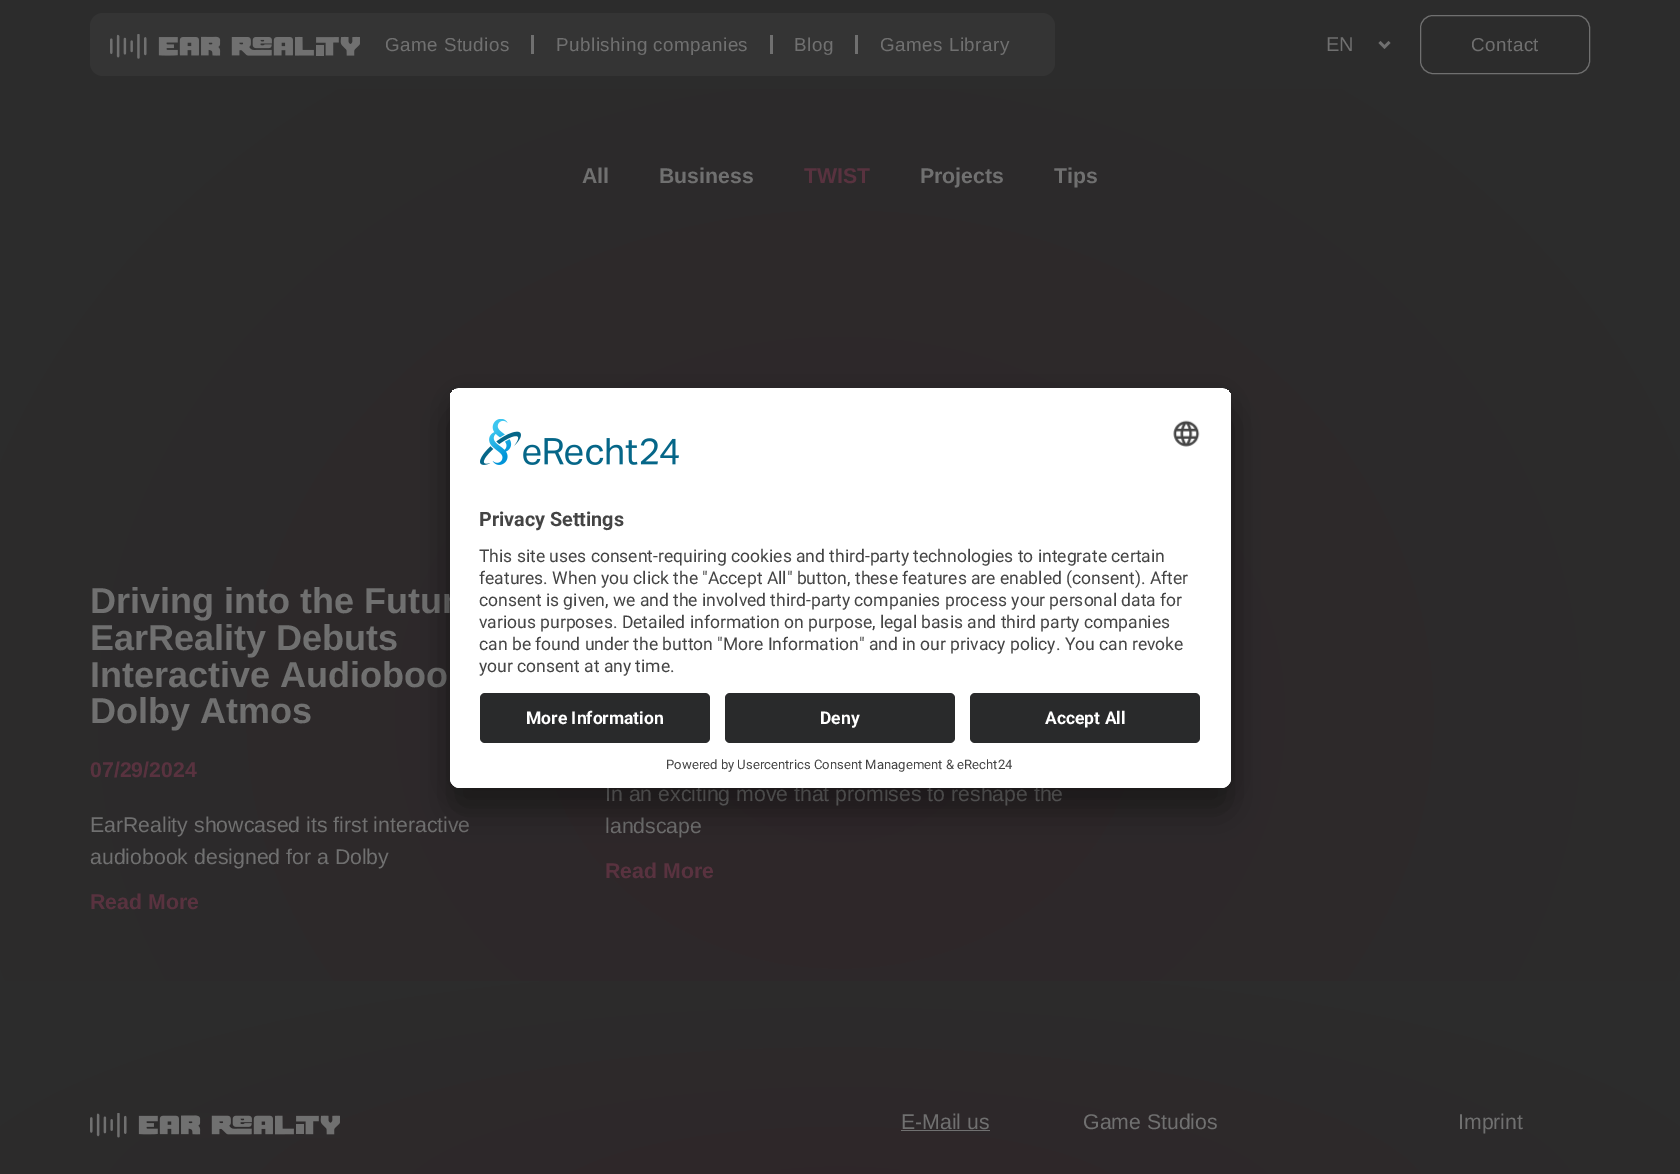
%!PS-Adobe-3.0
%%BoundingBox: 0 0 1680 1174
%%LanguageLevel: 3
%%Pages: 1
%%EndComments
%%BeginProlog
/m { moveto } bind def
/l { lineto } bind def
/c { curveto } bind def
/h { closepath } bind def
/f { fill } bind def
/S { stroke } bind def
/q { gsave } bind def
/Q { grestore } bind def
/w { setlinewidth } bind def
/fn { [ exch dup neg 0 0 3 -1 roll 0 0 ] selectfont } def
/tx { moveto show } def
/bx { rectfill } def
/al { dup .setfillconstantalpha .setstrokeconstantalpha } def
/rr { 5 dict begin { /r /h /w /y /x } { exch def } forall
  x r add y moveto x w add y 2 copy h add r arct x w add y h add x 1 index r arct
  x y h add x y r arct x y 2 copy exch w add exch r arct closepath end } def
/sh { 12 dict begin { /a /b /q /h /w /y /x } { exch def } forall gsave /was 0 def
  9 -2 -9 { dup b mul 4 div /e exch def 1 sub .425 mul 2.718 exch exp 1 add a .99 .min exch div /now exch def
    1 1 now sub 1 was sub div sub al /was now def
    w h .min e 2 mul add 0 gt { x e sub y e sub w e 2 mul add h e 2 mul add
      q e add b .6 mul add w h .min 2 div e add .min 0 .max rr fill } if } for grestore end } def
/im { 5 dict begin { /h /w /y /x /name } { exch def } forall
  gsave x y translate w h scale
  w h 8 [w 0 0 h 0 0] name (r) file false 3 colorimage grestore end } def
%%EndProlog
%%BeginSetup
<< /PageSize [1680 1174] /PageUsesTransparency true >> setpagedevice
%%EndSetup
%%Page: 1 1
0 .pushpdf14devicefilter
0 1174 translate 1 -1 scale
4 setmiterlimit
1 setgray
0 0 1680 1174 bx
q 0 89 m 1680 89 l 1680 981 l 0 981 l h clip newpath 840 716 translate 1188 1012 scale
<< /ShadingType 3 /ColorSpace /DeviceRGB /Coords [0 0 0 0 0 1] /Extend [true true] /Function << /FunctionType 3 /Domain [0 1] /Functions [<< /FunctionType 2 /Domain [0 1] /C0 [0.184 0.149 0.161] /C1 [0.173 0.173 0.173] /N 1 >> << /FunctionType 2 /Domain [0 1] /C0 [0.173 0.173 0.173] /C1 [0.173 0.173 0.173] /N 1 >>] /Bounds [0.8] /Encode [0 1 0 1] >> >> shfill Q
0.173 setgray
0 0 1680 89 bx
0.204 setgray
90 13 965 63 13 rr f
(image0.raw) 110 34 250 25 im
/LiberationSans-Regular 18.75 fn
0.439 setgray
385 51 m 0.5 0 (Game Studios) ashow
531 35 3 19 bx
556 51 m 0.5 0 (Publishing companies) ashow
770 35 3 19 bx
794 51 m 0.5 0 (Blog) ashow
855 35 3 19 bx
880 51 m 0.5 0 (Games Library) ashow
2.5 w
1379.5 42 m 1384.5 47 l 1389.5 42 l S
/LiberationSans-Regular 20 fn
(EN) 1326 51 tx
1 w
1420.5 15.5 169 58 12.5 rr S
/LiberationSans-Regular 18.75 fn
1471 51 m 0.5 0 (Contact) ashow
/LiberationSans-Bold 21.25 fn
(All) 582 183 tx
(Business) 659 183 tx
0.349 0.196 0.247 setrgbcolor
(TWIST) 804 183 tx
0.439 setgray
(Projects) 920 183 tx
(Tips) 1054 183 tx
/LiberationSans-Bold 36 fn
(Driving into the Futur) 90 613 tx
(EarReality Debuts) 90 650 tx
(Interactive Audioboo) 90 687 tx
(Dolby Atmos) 90 723 tx
/LiberationSans-Bold 21.25 fn
0.349 0.196 0.247 setrgbcolor
(07/29/2024) 90 777 tx
/LiberationSans-Regular 21.25 fn
0.439 setgray
(EarReality showcased its first interactive) 90 832 tx
(audiobook designed for a Dolby) 90 864 tx
/LiberationSans-Bold 21.25 fn
0.349 0.196 0.247 setrgbcolor
(Read More) 90 909 tx
/LiberationSans-Regular 21.25 fn
0.439 setgray
(In an exciting move that promises to reshape the) 605 801 tx
(landscape) 605 833 tx
/LiberationSans-Bold 21.25 fn
0.349 0.196 0.247 setrgbcolor
(Read More) 605 878 tx
0 setgray
450 413 781 400 10 17.5 0.3 sh
450 394 781 400 10 16 0.22 sh
1 setgray
450 388 781 400 10 rr f
q
450 388 781 400 10 rr clip newpath
460 388 m 1221 388 l 1226.5 388 1231 392.5 1231 398 c 1231 683 l 450 683 l 450 398 l 450 392.5 454.5 388 460 388 c h clip newpath
450 389 781 294 bx
Q
(image1.raw) 480 419 199 46 im
(image2.raw) 1173 420 27 27 im
/Roboto-Bold 19.75 fn
0.267 setgray
(Privacy Settings) 479 526 tx
/Roboto-Regular 17.5 fn
(This site uses consent-requiring cookies and third-party technologies to integrate certain) 479 562 tx
(features. When you click the "Accept All" button, these features are enabled \(consent\). After) 479 584 tx
(consent is given, we and the involved third-party companies process your personal data for) 479 606 tx
(various purposes. Detailed information on purpose, legal basis and third party companies) 479 628 tx
(can be found under the button "More Information" and in our privacy policy. You can revoke) 479 650 tx
(your consent at any time.) 479 672 tx
1 setgray
450 683 m 1231 683 l 1231 778 l 1231 783.5 1226.5 788 1221 788 c 460 788 l 454.5 788 450 783.5 450 778 c h f
0.161 0.165 0.169 setrgbcolor
480 693 230 50 5 rr f
/Roboto-Bold 17.5 fn
1 setgray
(More Information) 526 724 tx
0.161 0.165 0.169 setrgbcolor
725 693 230 50 5 rr f
1 setgray
(Deny) 820 724 tx
0.161 0.165 0.169 setrgbcolor
970 693 230 50 5 rr f
1 setgray
(Accept All) 1045 724 tx
/Roboto-Regular 13.1 fn
0.267 setgray
(Powered by Usercentrics Consent Management & eRecht24) 666 769 tx
q 0 981 m 1680 981 l 1680 1174 l 0 1174 l h clip newpath 840 1206 translate 1188 318 scale
<< /ShadingType 3 /ColorSpace /DeviceRGB /Coords [0 0 0 0 0 1] /Extend [true true] /Function << /FunctionType 3 /Domain [0 1] /Functions [<< /FunctionType 2 /Domain [0 1] /C0 [0.184 0.149 0.161] /C1 [0.173 0.173 0.173] /N 1 >> << /FunctionType 2 /Domain [0 1] /C0 [0.173 0.173 0.173] /C1 [0.173 0.173 0.173] /N 1 >>] /Bounds [0.8] /Encode [0 1 0 1] >> >> shfill Q
(image3.raw) 90 1113 250 25 im
/LiberationSans-Regular 21.25 fn
0.439 setgray
(E-Mail us) 901 1129 tx
901 1130 89 1 bx
(Game Studios) 1083 1129 tx
(Imprint) 1458 1129 tx
.poppdf14devicefilter showpage
%%EOF
